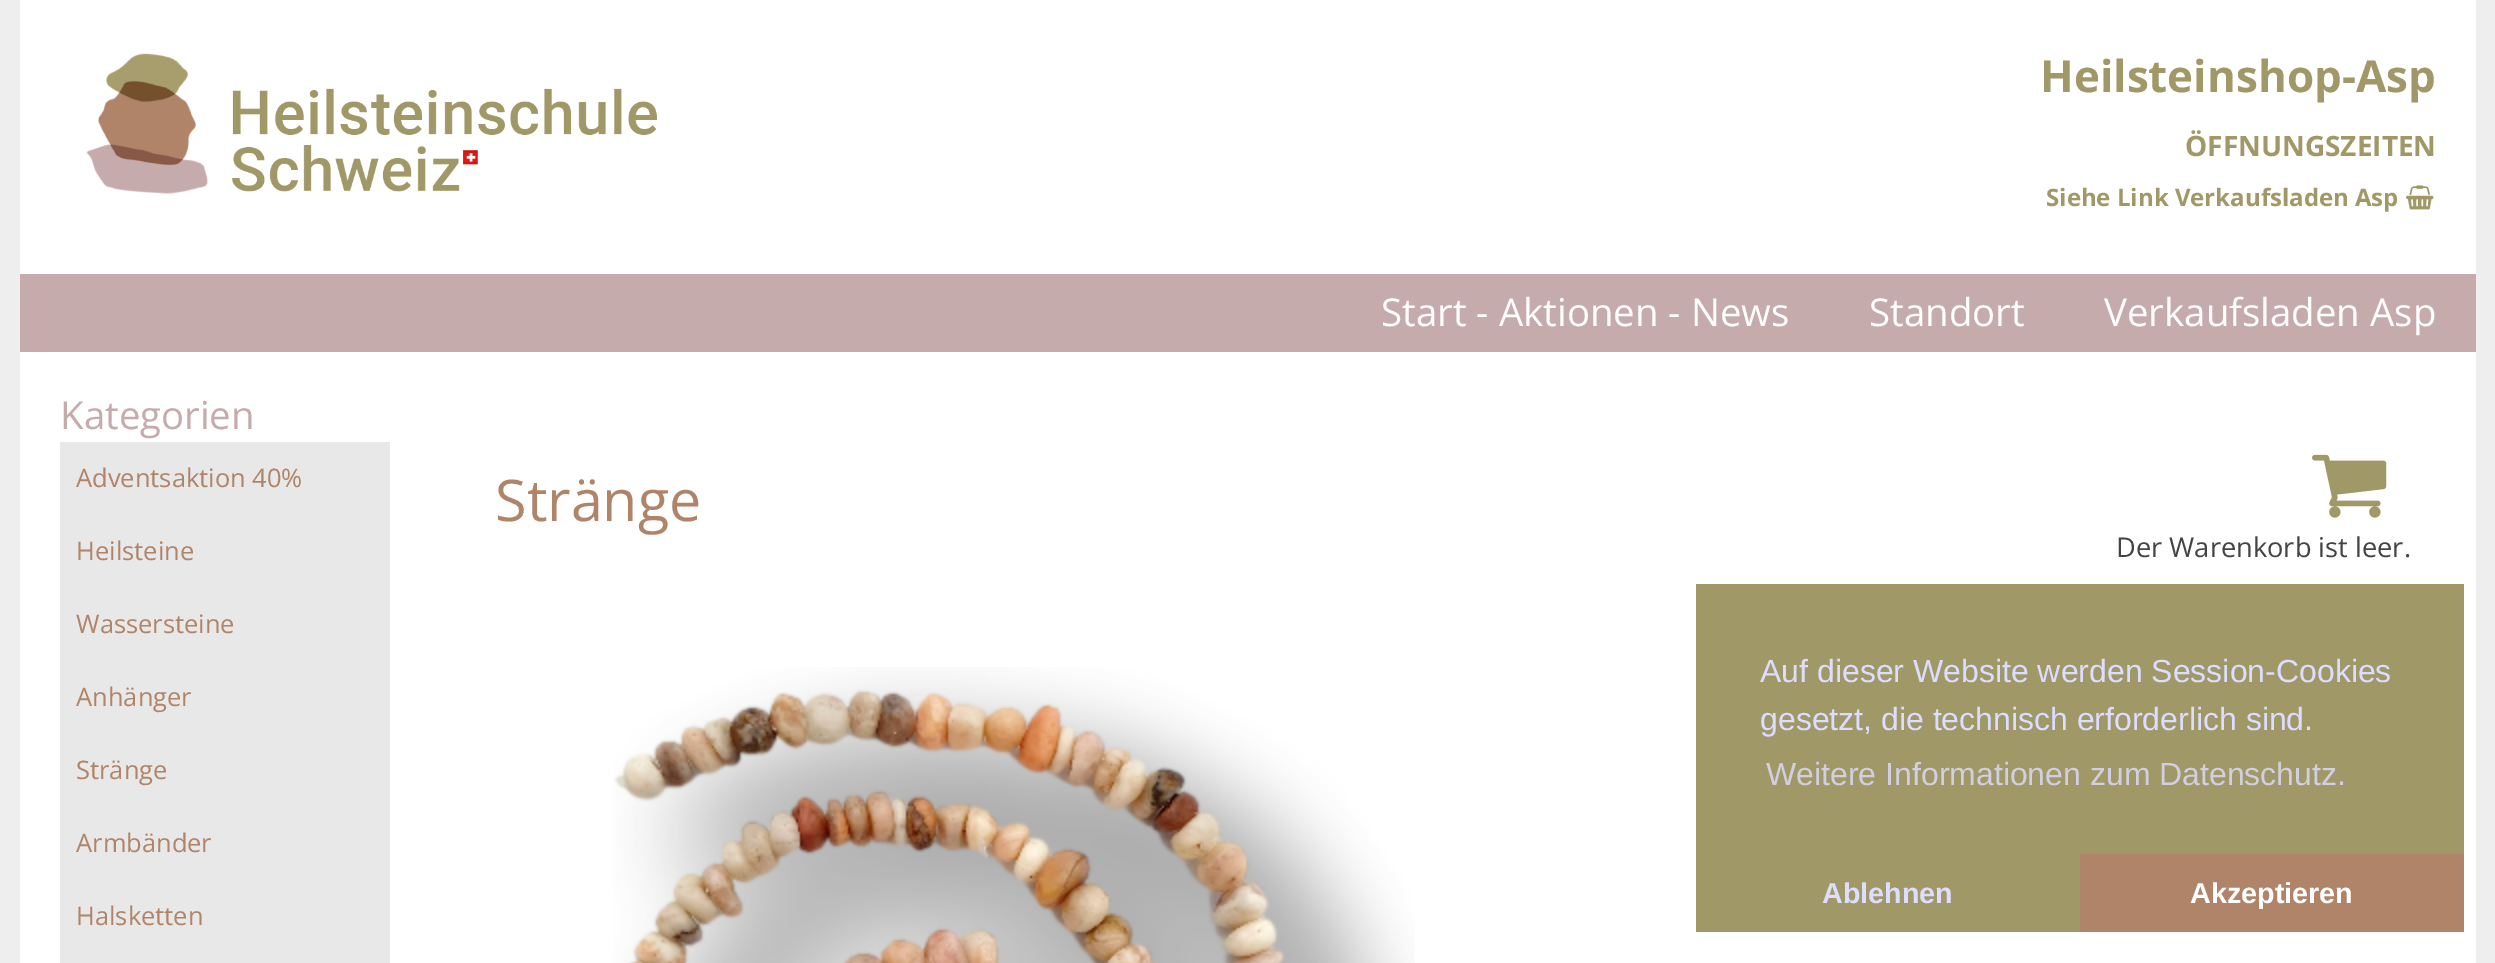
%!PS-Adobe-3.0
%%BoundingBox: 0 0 2495 963
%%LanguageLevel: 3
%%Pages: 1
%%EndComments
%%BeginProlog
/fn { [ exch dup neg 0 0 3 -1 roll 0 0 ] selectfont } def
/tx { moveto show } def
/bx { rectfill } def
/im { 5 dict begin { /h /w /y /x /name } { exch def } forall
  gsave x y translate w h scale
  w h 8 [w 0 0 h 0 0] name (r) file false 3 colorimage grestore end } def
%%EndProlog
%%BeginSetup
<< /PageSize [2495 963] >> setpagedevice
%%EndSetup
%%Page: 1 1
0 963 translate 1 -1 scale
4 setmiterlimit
0.933 setgray
0 0 2495 963 bx
1 setgray
20 0 2456 274 bx
(image0.raw) 86 53 571 141 im
/OpenSans-Bold 44 fn
0.631 0.596 0.408 setrgbcolor
(Heilsteinshop-Asp) 2040 92 tx
/OpenSans-Bold 28 fn
(ÖFFNUNGSZEITEN) 2185 156 tx
/OpenSans-Bold 24 fn
(Siehe Link Verkaufsladen Asp) 2046 206 tx
(image1.raw) 2406 185 28 25 im
0.776 0.671 0.678 setrgbcolor
20 274 2456 78 bx
/OpenSans-Regular 38.4 fn
1 setgray
(Start - Aktionen - News) 1381 326 tx
(Standort) 1869 326 tx
(Verkaufsladen Asp) 2104 326 tx
20 352 2456 611 bx
0.776 0.671 0.678 setrgbcolor
(Kategorien) 60 429 tx
0.91 setgray
60 442 330 521 bx
/OpenSans-Regular 25.5 fn
0.69 0.518 0.408 setrgbcolor
(Adventsaktion 40%) 76 487 tx
(Heilsteine) 76 560 tx
(Wassersteine) 76 633 tx
(Anhänger) 76 706 tx
(Stränge) 76 779 tx
(Armbänder) 76 852 tx
(Halsketten) 76 925 tx
/OpenSans-Regular 57.5 fn
(Stränge) 495 521 tx
(image2.raw) 2312 454 75 64 im
/OpenSans-Regular 27.25 fn
0.267 setgray
(Der Warenkorb ist leer.) 2116 557 tx
(image3.raw) 613 667 802 296 im
0.631 0.596 0.408 setrgbcolor
1696 584 768 348 bx
/LiberationSans-Regular 32 fn
0.867 0.867 1 setrgbcolor
(Auf dieser Website werden Session-Cookies) 1760 682 tx
(gesetzt, die technisch erforderlich sind.) 1760 730 tx
0.82 0.812 0.882 setrgbcolor
(Weitere Informationen zum Datenschutz.) 1766 785 tx
/LiberationSans-Bold 28.75 fn
0.867 0.867 1 setrgbcolor
(Ablehnen) 1822 903 tx
0.69 0.518 0.408 setrgbcolor
2080 854 384 78 bx
1 setgray
(Akzeptieren) 2190 903 tx
showpage
%%EOF
